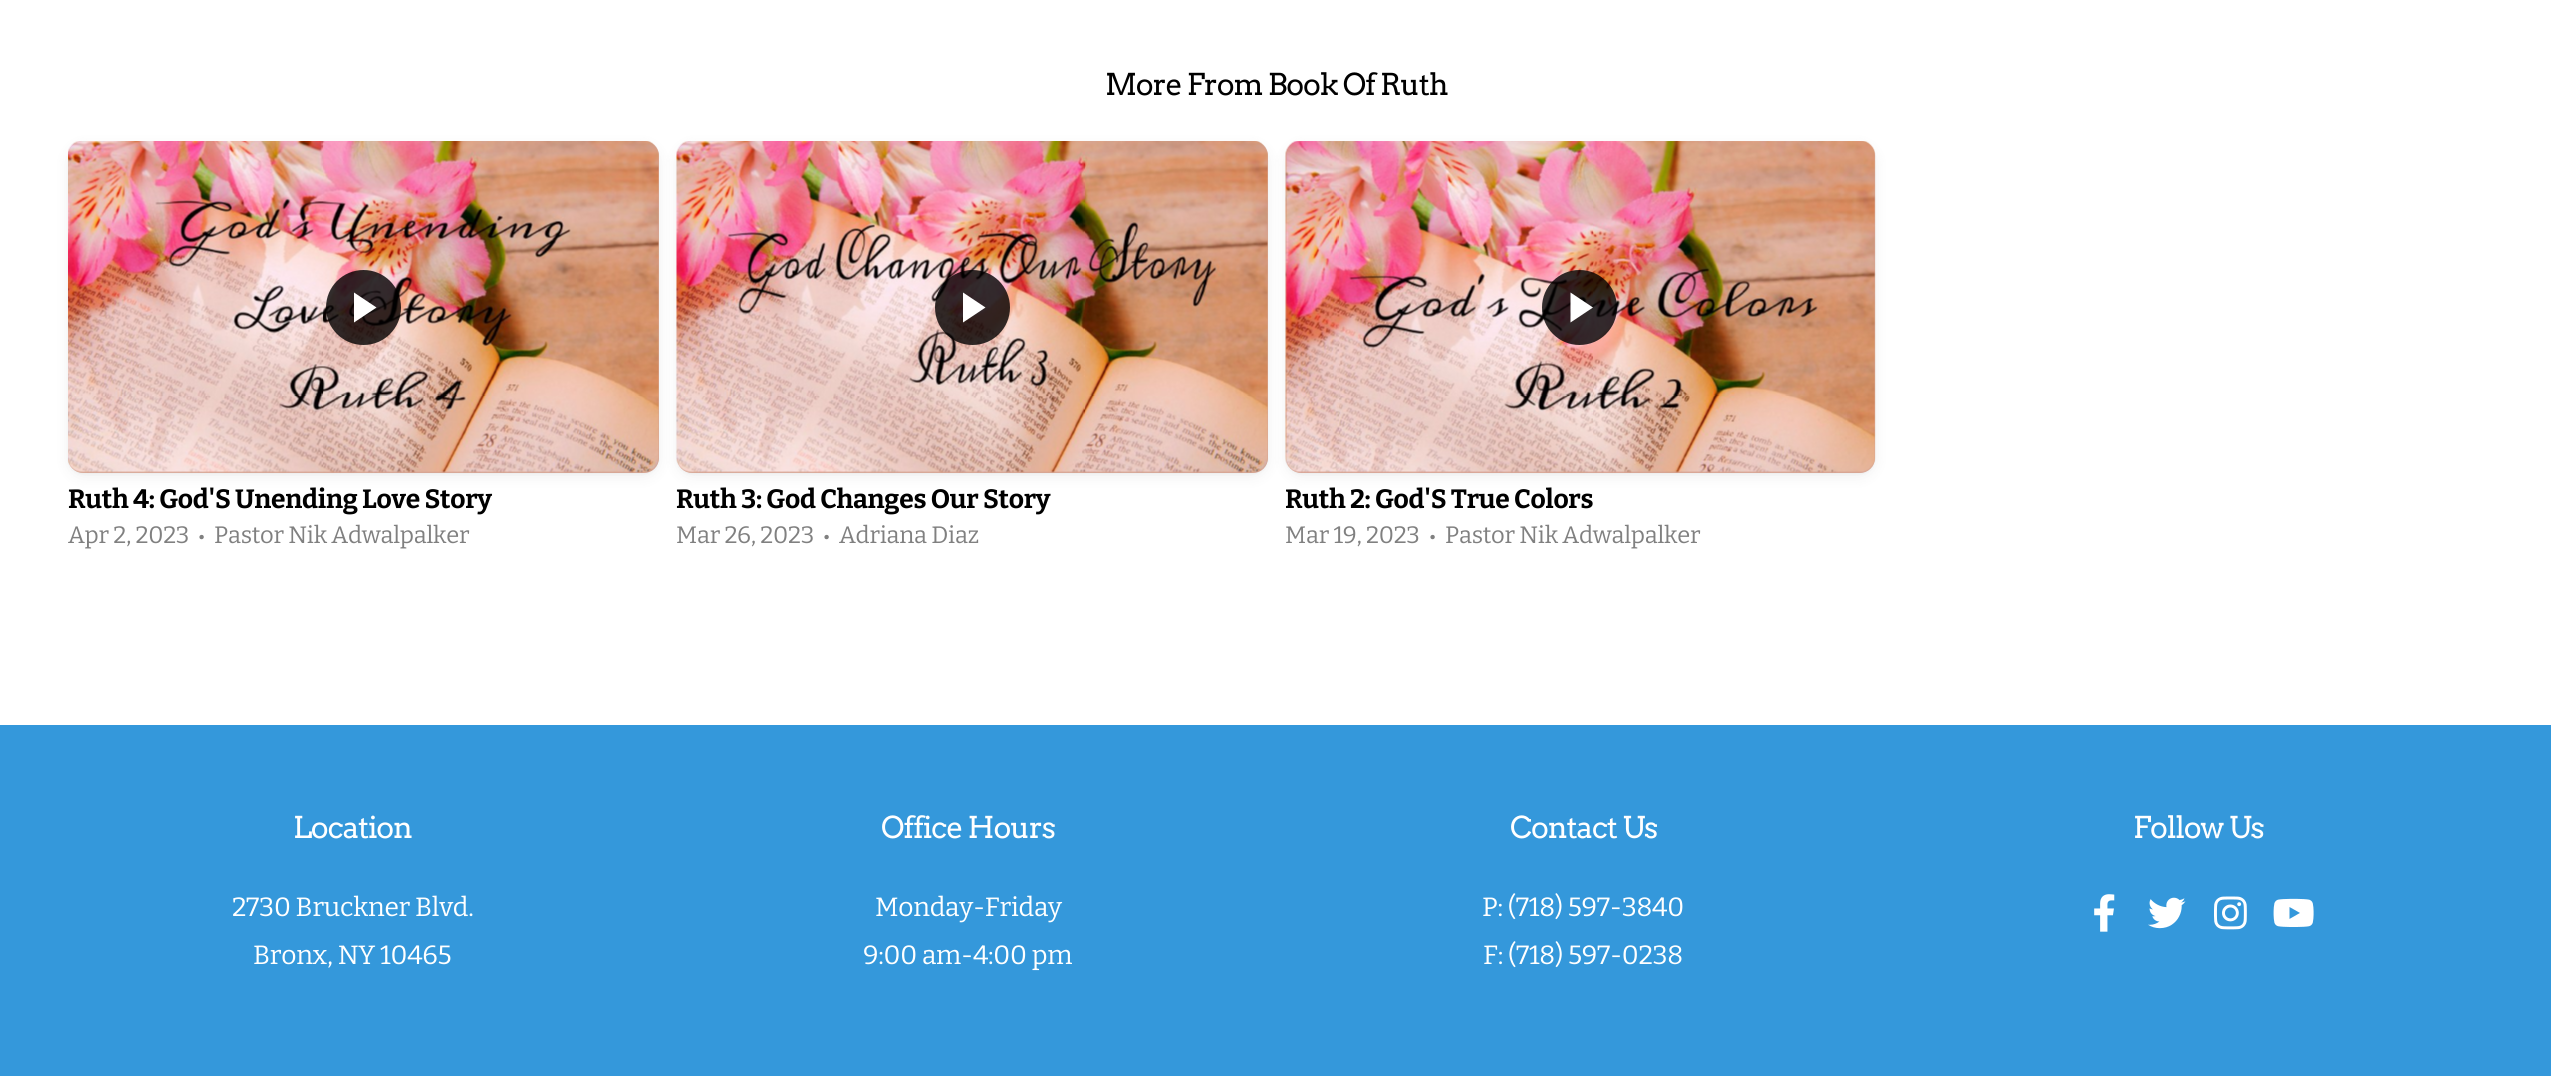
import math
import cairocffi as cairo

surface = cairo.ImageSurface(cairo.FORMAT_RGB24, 2551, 1076)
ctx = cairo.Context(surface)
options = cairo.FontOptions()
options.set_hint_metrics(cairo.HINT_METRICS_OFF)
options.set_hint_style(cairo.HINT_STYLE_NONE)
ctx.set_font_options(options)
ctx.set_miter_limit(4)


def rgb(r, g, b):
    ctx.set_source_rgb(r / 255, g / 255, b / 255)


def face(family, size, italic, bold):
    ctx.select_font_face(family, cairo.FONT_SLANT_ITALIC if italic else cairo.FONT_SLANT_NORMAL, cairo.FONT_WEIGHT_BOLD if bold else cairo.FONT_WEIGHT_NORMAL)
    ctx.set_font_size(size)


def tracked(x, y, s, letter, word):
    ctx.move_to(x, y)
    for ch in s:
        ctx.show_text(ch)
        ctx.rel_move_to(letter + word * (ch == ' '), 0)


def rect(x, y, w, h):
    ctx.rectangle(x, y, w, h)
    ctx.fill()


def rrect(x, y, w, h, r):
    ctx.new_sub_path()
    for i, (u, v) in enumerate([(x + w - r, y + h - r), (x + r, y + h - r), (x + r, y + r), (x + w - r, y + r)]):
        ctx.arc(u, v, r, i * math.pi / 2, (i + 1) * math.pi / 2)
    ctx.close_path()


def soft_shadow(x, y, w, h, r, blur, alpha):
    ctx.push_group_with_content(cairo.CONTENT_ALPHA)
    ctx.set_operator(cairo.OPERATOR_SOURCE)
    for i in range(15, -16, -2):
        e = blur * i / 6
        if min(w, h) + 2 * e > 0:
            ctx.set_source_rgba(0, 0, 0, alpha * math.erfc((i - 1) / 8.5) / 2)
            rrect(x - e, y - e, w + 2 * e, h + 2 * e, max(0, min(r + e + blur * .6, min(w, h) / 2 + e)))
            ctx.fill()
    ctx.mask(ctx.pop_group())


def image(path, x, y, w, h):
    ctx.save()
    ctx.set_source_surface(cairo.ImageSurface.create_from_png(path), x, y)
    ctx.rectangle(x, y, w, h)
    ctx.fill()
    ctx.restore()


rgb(255, 255, 255)
ctx.paint()
face('Arvo', 30, 0, 0)
rgb(0, 0, 0)
tracked(1105, 95, 'More From Book Of Ruth', -1.2, 0)
rgb(0, 0, 0)
soft_shadow(68, 143, 591, 331, 15, 1.5, 0.04)
soft_shadow(68, 146, 591, 331, 15, 7.5, 0.06)
rgb(214, 165, 147)
rrect(68, 141, 591, 332, 15)
ctx.fill()
image('image0.png', 68, 141, 591, 332)
ctx.set_source_rgba(0, 0, 0, 0.8)
ctx.arc(363.5, 307.5, 37.5, 0, 2 * math.pi)
ctx.fill()
rgb(255, 255, 255)
ctx.new_path()
ctx.move_to(354, 322.5)
ctx.line_to(354, 292.5)
ctx.line_to(376.5, 307.5)
ctx.close_path()
ctx.fill()
face('Bitter', 26.4, 0, 1)
rgb(0, 0, 0)
tracked(68, 508, 'Ruth 4: God\'S Unending Love Story', -0.25, 0)
face('Bitter', 23.75, 0, 0)
rgb(128, 128, 128)
tracked(68, 543, 'Apr 2, 2023', -0.25, 0)
face('Bitter', 19, 0, 0)
tracked(198, 543, '•', -0.25, 0)
face('Bitter', 23.75, 0, 0)
tracked(214, 543, 'Pastor Nik Adwalpalker', -0.25, 0)
rgb(0, 0, 0)
soft_shadow(677, 143, 591, 331, 15, 1.5, 0.04)
soft_shadow(677, 146, 591, 331, 15, 7.5, 0.06)
rgb(214, 165, 147)
rrect(677, 141, 591, 332, 15)
ctx.fill()
image('image1.png', 676, 141, 592, 332)
ctx.set_source_rgba(0, 0, 0, 0.8)
ctx.arc(972.5, 307.5, 37.5, 0, 2 * math.pi)
ctx.fill()
rgb(255, 255, 255)
ctx.new_path()
ctx.move_to(963, 322.5)
ctx.line_to(963, 292.5)
ctx.line_to(985.5, 307.5)
ctx.close_path()
ctx.fill()
face('Bitter', 26.4, 0, 1)
rgb(0, 0, 0)
tracked(676, 508, 'Ruth 3: God Changes Our Story', -0.25, 0)
face('Bitter', 23.75, 0, 0)
rgb(128, 128, 128)
tracked(676, 543, 'Mar 26, 2023', -0.25, 0)
face('Bitter', 19, 0, 0)
tracked(823, 543, '•', -0.25, 0)
face('Bitter', 23.75, 0, 0)
tracked(839, 543, 'Adriana Diaz', -0.25, 0)
rgb(0, 0, 0)
soft_shadow(1286, 143, 589, 331, 15, 1.5, 0.04)
soft_shadow(1286, 146, 589, 331, 15, 7.5, 0.06)
rgb(215, 165, 148)
rrect(1286, 141, 589, 332, 15)
ctx.fill()
image('image2.png', 1285, 141, 591, 332)
ctx.set_source_rgba(0, 0, 0, 0.8)
ctx.arc(1579.5, 307.5, 37.5, 0, 2 * math.pi)
ctx.fill()
rgb(255, 255, 255)
ctx.new_path()
ctx.move_to(1570.5, 322.5)
ctx.line_to(1570.5, 292.5)
ctx.line_to(1593, 307.5)
ctx.close_path()
ctx.fill()
ctx.save()
ctx.rectangle(1286, 480, 589, 41)
ctx.clip()
face('Bitter', 26.4, 0, 1)
rgb(0, 0, 0)
tracked(1285, 508, 'Ruth 2: God\'S True Colors', -0.25, 0)
ctx.restore()
rgb(128, 128, 128)
tracked(1285, 543, 'Mar 19, 2023', -0.25, 0)
face('Bitter', 19, 0, 0)
tracked(1429, 543, '•', -0.25, 0)
face('Bitter', 23.75, 0, 0)
tracked(1445, 543, 'Pastor Nik Adwalpalker', -0.25, 0)
rgb(52, 152, 219)
rect(0, 725, 2551, 351)
face('Arvo', 30, 0, 0)
rgb(255, 255, 255)
tracked(293, 838, 'Location', -1.2, 0)
face('Bitter', 26.4, 0, 0)
tracked(232, 916, '2730 Bruckner Blvd.', -0.25, 0)
tracked(253, 964, 'Bronx, NY 10465', -0.25, 0)
face('Arvo', 30, 0, 0)
tracked(881, 838, 'Office Hours', -1.2, 0)
face('Bitter', 26.4, 0, 0)
tracked(875, 916, 'Monday-Friday', -0.25, 0)
tracked(863, 964, '9:00 am-4:00 pm', -0.25, 0)
face('Arvo', 30, 0, 0)
tracked(1510, 838, 'Contact Us', -1.2, 0)
face('Bitter', 26.4, 0, 0)
tracked(1482, 916, 'P: (718) 597-3840', -0.25, 0)
tracked(1483, 964, 'F: (718) 597-0238', -0.25, 0)
face('Arvo', 30, 0, 0)
tracked(2133, 838, 'Follow Us', -1.2, 0)
image('image3.png', 2094, 894, 21, 38)
image('image4.png', 2148, 897, 38, 32)
image('image5.png', 2214, 896, 33, 34)
image('image6.png', 2273, 898, 41, 29)
surface.write_to_png('render.png')
